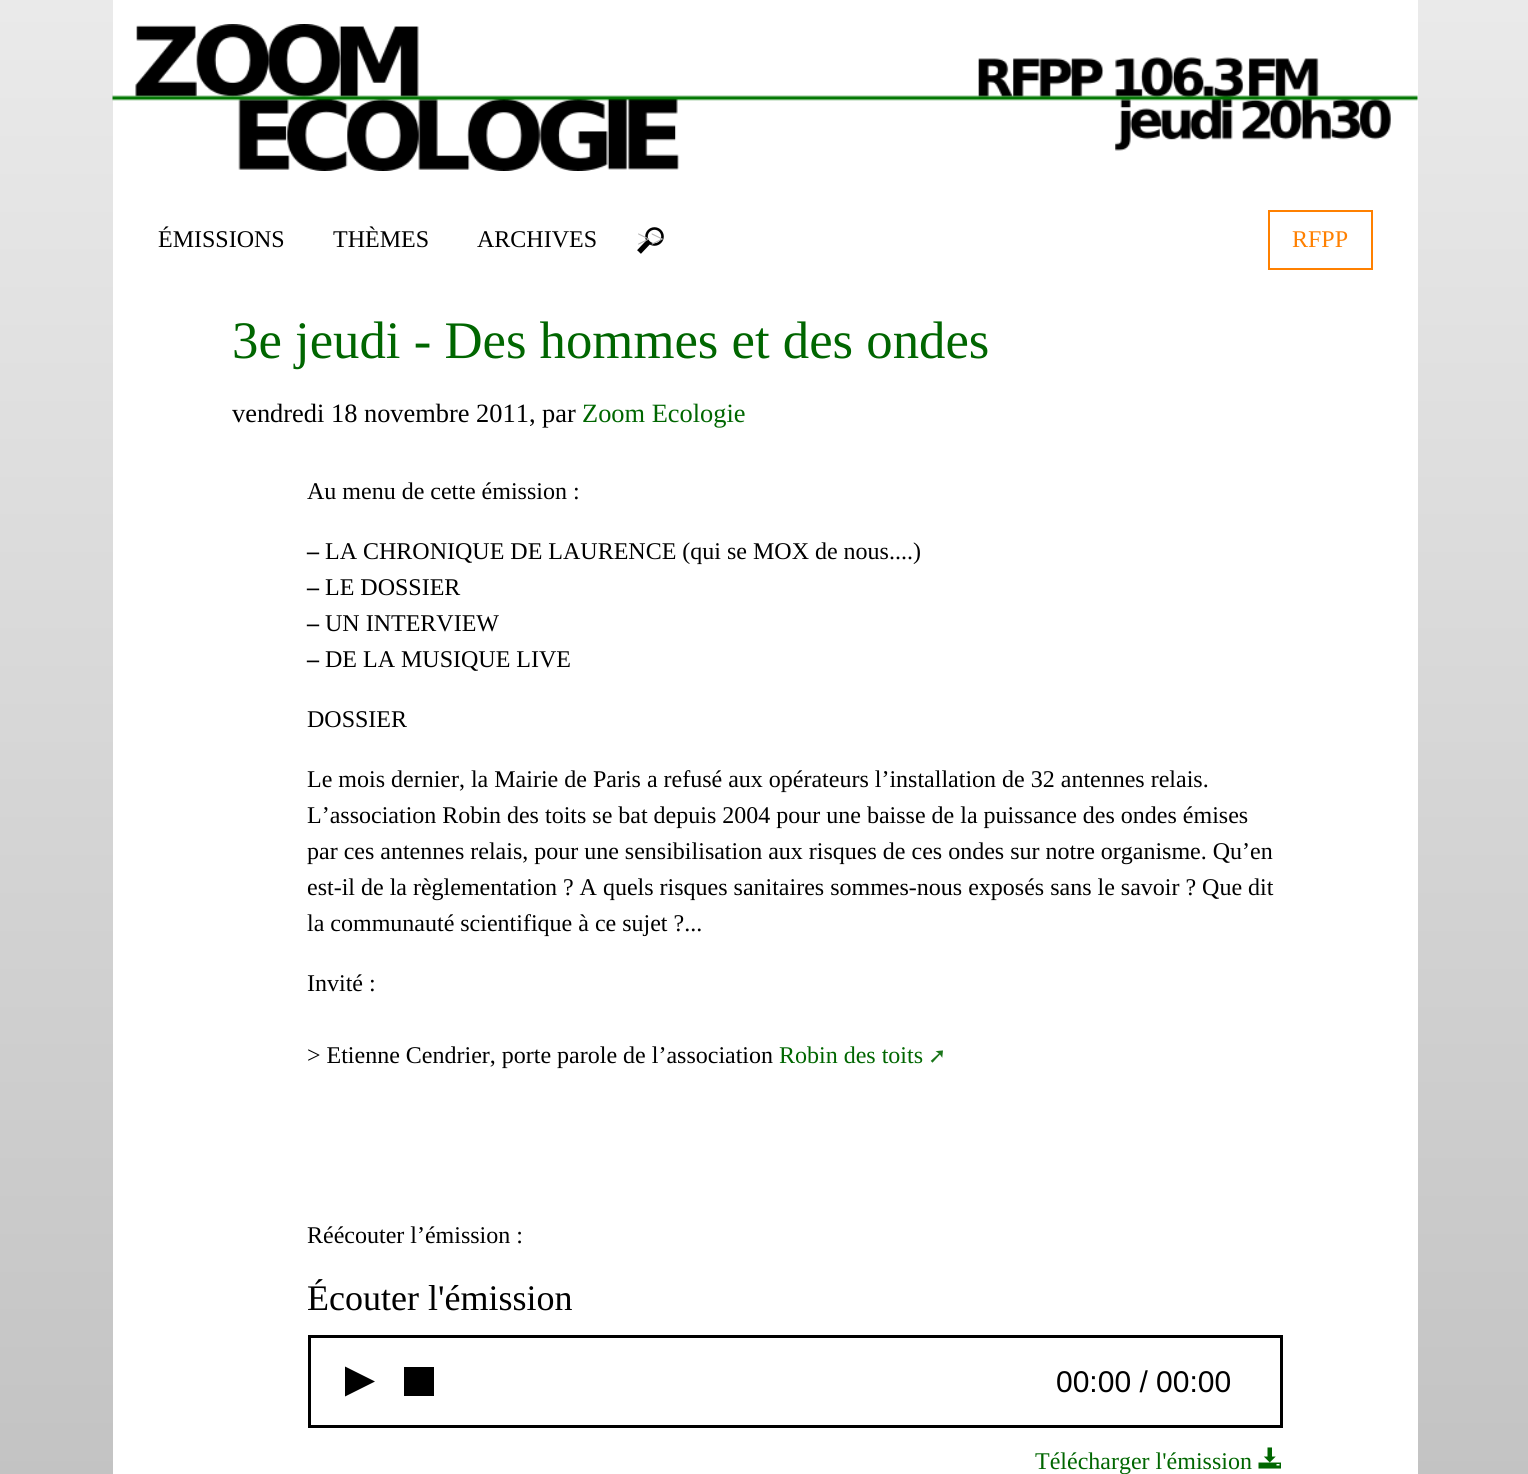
import math
import cairocffi as cairo

surface = cairo.ImageSurface(cairo.FORMAT_RGB24, 1528, 1474)
ctx = cairo.Context(surface)
options = cairo.FontOptions()
options.set_hint_metrics(cairo.HINT_METRICS_OFF)
options.set_hint_style(cairo.HINT_STYLE_NONE)
ctx.set_font_options(options)
ctx.set_miter_limit(4)


def rgb(r, g, b):
    ctx.set_source_rgb(r / 255, g / 255, b / 255)


def face(family, size, italic, bold):
    ctx.select_font_face(family, cairo.FONT_SLANT_ITALIC if italic else cairo.FONT_SLANT_NORMAL, cairo.FONT_WEIGHT_BOLD if bold else cairo.FONT_WEIGHT_NORMAL)
    ctx.set_font_size(size)


def label(x, y, s):
    ctx.move_to(x, y)
    ctx.show_text(s)


def rect(x, y, w, h):
    ctx.rectangle(x, y, w, h)
    ctx.fill()


def image(path, x, y, w, h):
    ctx.save()
    ctx.set_source_surface(cairo.ImageSurface.create_from_png(path), x, y)
    ctx.rectangle(x, y, w, h)
    ctx.fill()
    ctx.restore()


rgb(255, 255, 255)
ctx.paint()
gradient = cairo.LinearGradient(764, 0, 764, 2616)
gradient.add_color_stop_rgba(0, 0.918, 0.918, 0.918, 1)
gradient.add_color_stop_rgba(1, 0.647, 0.647, 0.647, 1)
ctx.set_source(gradient)
rect(0, 0, 1528, 1474)
rgb(255, 255, 255)
rect(113, 0, 1305, 1474)
image('image0.png', 112, 24, 1306, 147)
face('Liberation Serif', 24, 0, 0)
rgb(0, 0, 0)
label(158, 247, 'ÉMISSIONS')
label(333, 247, 'THÈMES')
label(477, 247, 'ARCHIVES')
ctx.new_path()
ctx.arc(654.5, 236.5, 8, 0, 2 * math.pi)
ctx.set_line_width(2.6)
ctx.stroke()
ctx.new_path()
ctx.move_to(648.5, 242)
ctx.line_to(639, 252)
ctx.set_line_width(5.3)
ctx.stroke()
rgb(180, 180, 180)
label(637, 247, '>>')
ctx.rectangle(1269, 211, 103, 58)
rgb(255, 128, 0)
ctx.set_line_width(2)
ctx.stroke()
label(1292, 247, 'RFPP')
face('Liberation Serif', 52.75, 0, 0)
rgb(0, 102, 0)
label(232, 358, '3e jeudi - Des hommes et des ondes')
face('Liberation Serif', 26.4, 0, 0)
rgb(0, 0, 0)
label(232, 422, 'vendredi 18 novembre 2011, par')
rgb(0, 102, 0)
label(582, 422, 'Zoom Ecologie')
face('Liberation Serif', 24, 0, 0)
rgb(0, 0, 0)
label(307, 499, 'Au menu de cette émission :')
face('Liberation Serif', 24, 0, 1)
label(307, 559, '–')
face('Liberation Serif', 24, 0, 0)
label(325, 559, 'LA CHRONIQUE DE LAURENCE (qui se MOX de nous....)')
face('Liberation Serif', 24, 0, 1)
label(307, 595, '–')
face('Liberation Serif', 24, 0, 0)
label(325, 595, 'LE DOSSIER')
face('Liberation Serif', 24, 0, 1)
label(307, 631, '–')
face('Liberation Serif', 24, 0, 0)
label(325, 631, 'UN INTERVIEW')
face('Liberation Serif', 24, 0, 1)
label(307, 667, '–')
face('Liberation Serif', 24, 0, 0)
label(325, 667, 'DE LA MUSIQUE LIVE')
label(307, 727, 'DOSSIER')
label(307, 787, 'Le mois dernier, la Mairie de Paris a refusé aux opérateurs l’installation de 32 antennes relais.')
label(307, 823, 'L’association Robin des toits se bat depuis 2004 pour une baisse de la puissance des ondes émises')
label(307, 859, 'par ces antennes relais, pour une sensibilisation aux risques de ces ondes sur notre organisme. Qu’en')
label(307, 895, 'est-il de la règlementation ? A quels risques sanitaires sommes-nous exposés sans le savoir ? Que dit')
label(307, 931, 'la communauté scientifique à ce sujet ?...')
label(307, 991, 'Invité :')
label(307, 1063, '> Etienne Cendrier, porte parole de l’association')
rgb(0, 102, 0)
label(779, 1063, 'Robin des toits')
face('DejaVu Sans', 22, 0, 0)
rgb(26, 117, 26)
label(928, 1063, '➚')
face('Liberation Serif', 24, 0, 0)
rgb(0, 0, 0)
label(307, 1243, 'Réécouter l’émission :')
face('Liberation Serif', 36, 0, 0)
label(307, 1310, 'Écouter l\'émission')
ctx.rectangle(309.5, 1336.5, 972, 90)
ctx.set_line_width(3)
ctx.stroke()
ctx.new_path()
ctx.move_to(345, 1396.5)
ctx.line_to(345, 1366.5)
ctx.line_to(375, 1381.5)
ctx.close_path()
ctx.fill()
rect(404, 1367, 30, 29)
face('Liberation Sans', 30, 0, 0)
label(1056, 1392, '00:00 / 00:00')
face('Liberation Serif', 24, 0, 0)
rgb(0, 102, 0)
label(1035, 1469, 'Télécharger l\'émission')
image('image1.png', 1258, 1447, 23, 22)
surface.write_to_png('render.png')
